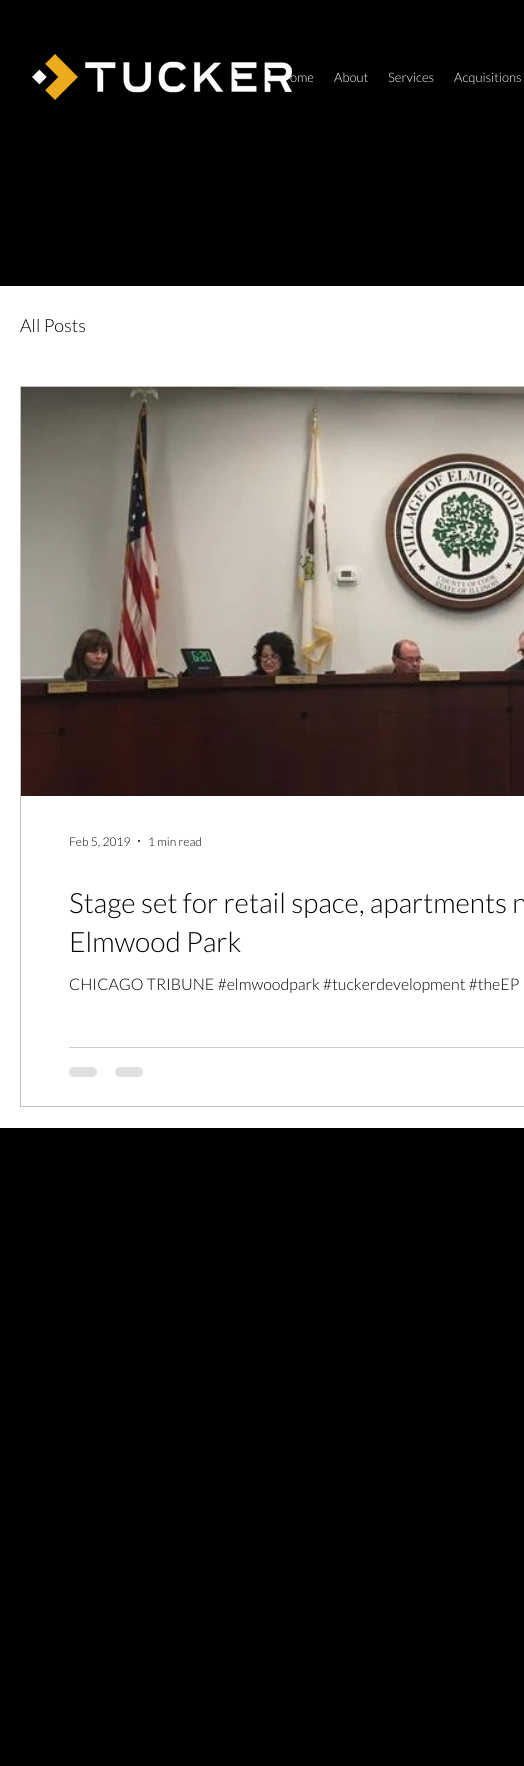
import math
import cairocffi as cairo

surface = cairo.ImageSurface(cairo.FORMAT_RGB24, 524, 1766)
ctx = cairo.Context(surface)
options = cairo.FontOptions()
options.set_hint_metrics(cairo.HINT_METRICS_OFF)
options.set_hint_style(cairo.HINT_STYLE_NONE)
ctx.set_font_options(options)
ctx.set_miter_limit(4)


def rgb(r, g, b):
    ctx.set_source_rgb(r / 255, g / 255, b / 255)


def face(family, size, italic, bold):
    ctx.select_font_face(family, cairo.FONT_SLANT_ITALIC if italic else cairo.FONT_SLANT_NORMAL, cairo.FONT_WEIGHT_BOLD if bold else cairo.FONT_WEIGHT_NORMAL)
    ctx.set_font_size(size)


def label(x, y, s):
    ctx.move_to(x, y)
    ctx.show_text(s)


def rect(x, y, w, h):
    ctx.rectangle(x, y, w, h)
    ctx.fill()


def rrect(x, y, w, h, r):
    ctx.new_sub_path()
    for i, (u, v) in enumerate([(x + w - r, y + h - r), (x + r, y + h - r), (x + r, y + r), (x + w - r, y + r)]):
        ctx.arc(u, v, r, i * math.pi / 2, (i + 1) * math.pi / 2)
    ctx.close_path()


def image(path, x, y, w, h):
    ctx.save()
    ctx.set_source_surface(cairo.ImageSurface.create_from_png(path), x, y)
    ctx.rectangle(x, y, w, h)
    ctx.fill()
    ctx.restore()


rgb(0, 0, 0)
ctx.paint()
image('image0.png', 32, 54, 260, 46)
face('Lato Light', 13, 0, 0)
rgb(255, 255, 255)
label(290, 82, 'ome')
label(334, 82, 'About')
label(388, 82, 'Services')
label(454, 82, 'Acquisitions')
rect(0, 286, 524, 842)
face('Lato Light', 18, 0, 0)
rgb(0, 0, 0)
label(20, 332, 'All Posts')
ctx.rectangle(20.5, 386.5, 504, 720)
rgb(191, 191, 191)
ctx.set_line_width(1)
ctx.stroke()
image('image1.png', 21, 387, 503, 409)
face('Lato Light', 12, 0, 0)
rgb(0, 0, 0)
label(69, 846, 'Feb 5, 2019')
ctx.new_path()
ctx.arc(139, 841, 1, 0, 2 * math.pi)
ctx.fill()
label(148, 846, '1 min read')
face('Lato Light', 28, 0, 0)
label(69, 913, 'Stage set for retail space, apartments n')
label(69, 952, 'Elmwood Park')
face('Lato Light', 16, 0, 0)
label(69, 990, 'CHICAGO TRIBUNE #elmwoodpark #tuckerdevelopment #theEP')
rgb(204, 204, 204)
rect(69, 1047, 455, 1)
rgb(224, 224, 224)
rrect(69, 1067, 28, 10, 5)
ctx.fill()
rrect(115, 1067, 28, 10, 5)
ctx.fill()
surface.write_to_png('render.png')
